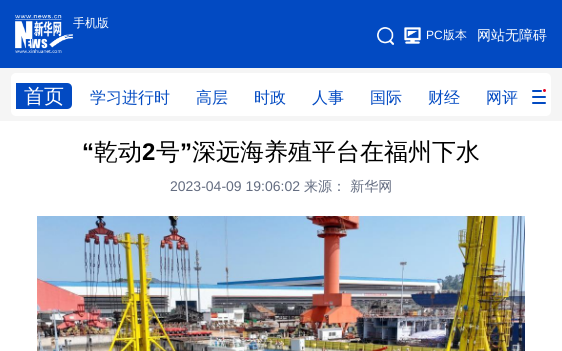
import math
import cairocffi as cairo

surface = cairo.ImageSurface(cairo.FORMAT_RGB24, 562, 351)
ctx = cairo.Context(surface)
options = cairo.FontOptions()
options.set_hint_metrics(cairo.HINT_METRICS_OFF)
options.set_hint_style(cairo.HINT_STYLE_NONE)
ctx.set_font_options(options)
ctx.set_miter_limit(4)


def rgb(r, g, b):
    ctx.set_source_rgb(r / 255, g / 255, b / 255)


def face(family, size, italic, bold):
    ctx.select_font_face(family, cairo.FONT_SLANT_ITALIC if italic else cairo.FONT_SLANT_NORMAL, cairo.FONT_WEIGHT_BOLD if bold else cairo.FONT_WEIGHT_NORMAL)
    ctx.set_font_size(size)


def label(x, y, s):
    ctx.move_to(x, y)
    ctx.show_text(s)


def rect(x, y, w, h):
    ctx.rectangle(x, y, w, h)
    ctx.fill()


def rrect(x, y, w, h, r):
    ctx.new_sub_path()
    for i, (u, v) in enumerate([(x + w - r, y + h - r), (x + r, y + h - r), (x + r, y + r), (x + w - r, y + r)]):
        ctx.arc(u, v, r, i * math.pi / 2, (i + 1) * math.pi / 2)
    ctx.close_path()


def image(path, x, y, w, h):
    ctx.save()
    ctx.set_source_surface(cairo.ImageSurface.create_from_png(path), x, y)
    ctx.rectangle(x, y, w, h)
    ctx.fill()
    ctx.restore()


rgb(255, 255, 255)
ctx.paint()
rgb(2, 74, 194)
rect(0, 0, 562, 68)
image('image0.png', 15, 15, 58, 38)
face('WenQuanYi Zen Hei Medium', 12, 0, 0)
rgb(255, 255, 255)
label(73, 27, '手机版')
image('image1.png', 377, 27, 17, 18)
image('image2.png', 404, 27, 17, 17)
face('Liberation Sans', 12, 0, 0)
label(426, 39, 'PC')
face('WenQuanYi Zen Hei Medium', 12, 0, 0)
label(443, 39, '版本')
face('WenQuanYi Zen Hei Medium', 14, 0, 0)
label(477, 40, '网站无障碍')
rgb(245, 245, 245)
rect(0, 68, 562, 53)
rgb(255, 255, 255)
rrect(11, 73, 540, 43, 5)
ctx.fill()
rgb(2, 74, 194)
ctx.new_path()
ctx.move_to(16, 83)
ctx.line_to(67, 83)
ctx.curve_to(70, 83, 72, 85, 72, 88)
ctx.line_to(72, 104)
ctx.curve_to(72, 107, 70, 109, 67, 109)
ctx.line_to(16, 109)
ctx.close_path()
ctx.fill()
face('WenQuanYi Zen Hei Medium', 20, 0, 0)
rgb(255, 255, 255)
label(24, 103, '首页')
face('WenQuanYi Zen Hei Medium', 16, 0, 0)
rgb(2, 74, 194)
label(90, 103, '学习进行时')
label(196, 103, '高层')
label(254, 103, '时政')
label(312, 103, '人事')
label(370, 103, '国际')
label(428, 103, '财经')
label(486, 103, '网评')
gradient = cairo.LinearGradient(514, 97, 524, 97)
gradient.add_color_stop_rgba(0, 1, 1, 1, 0)
gradient.add_color_stop_rgba(1, 1, 1, 1, 1)
ctx.set_source(gradient)
rect(514, 91, 4, 8)
rgb(2, 74, 194)
rrect(532, 90, 10, 2, 1)
ctx.fill()
rgb(229, 0, 32)
ctx.arc(544.5, 90.5, 1.5, 0, 2 * math.pi)
ctx.fill()
rgb(2, 74, 194)
rrect(532, 96, 14, 2, 1)
ctx.fill()
rrect(532, 102, 14, 2, 1)
ctx.fill()
face('Liberation Sans', 24, 0, 1)
rgb(0, 0, 0)
label(82, 160, '“')
face('WenQuanYi Zen Hei Medium', 24, 0, 0)
label(94, 160, '乾动')
face('Liberation Sans', 24, 0, 1)
label(142, 160, '2')
face('WenQuanYi Zen Hei Medium', 24, 0, 0)
label(156, 160, '号')
face('Liberation Sans', 24, 0, 1)
label(180, 160, '”')
face('WenQuanYi Zen Hei Medium', 24, 0, 0)
label(192, 160, '深远海养殖平台在福州下水')
face('Liberation Sans', 14, 0, 0)
rgb(100, 109, 129)
label(170, 191, '2023-04-09 19:06:02')
face('WenQuanYi Zen Hei Medium', 14, 0, 0)
label(304, 191, '来源： 新华网')
image('image3.png', 37, 216, 488, 135)
surface.write_to_png('render.png')
